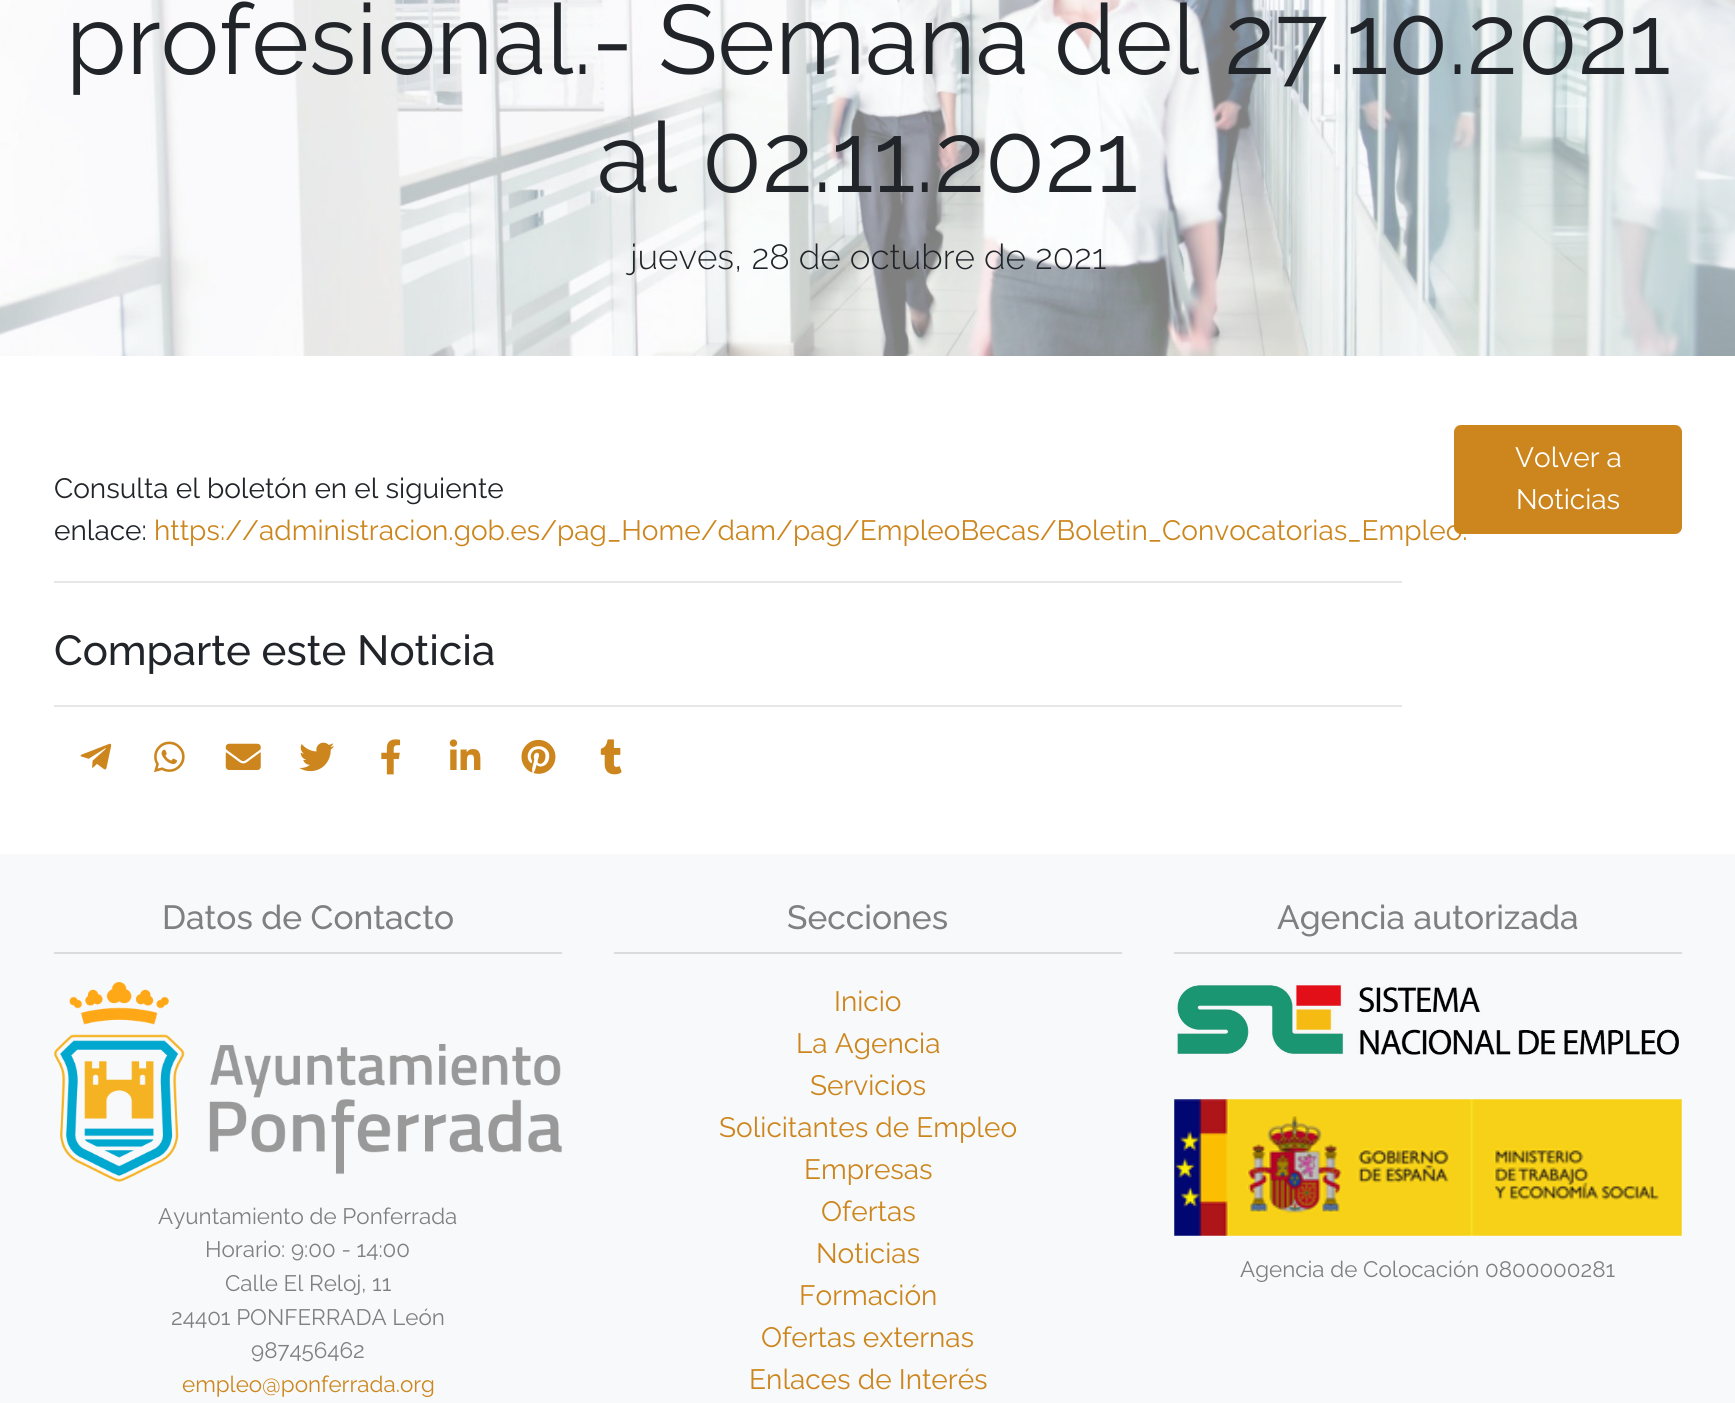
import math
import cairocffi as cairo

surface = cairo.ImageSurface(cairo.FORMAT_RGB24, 1735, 1403)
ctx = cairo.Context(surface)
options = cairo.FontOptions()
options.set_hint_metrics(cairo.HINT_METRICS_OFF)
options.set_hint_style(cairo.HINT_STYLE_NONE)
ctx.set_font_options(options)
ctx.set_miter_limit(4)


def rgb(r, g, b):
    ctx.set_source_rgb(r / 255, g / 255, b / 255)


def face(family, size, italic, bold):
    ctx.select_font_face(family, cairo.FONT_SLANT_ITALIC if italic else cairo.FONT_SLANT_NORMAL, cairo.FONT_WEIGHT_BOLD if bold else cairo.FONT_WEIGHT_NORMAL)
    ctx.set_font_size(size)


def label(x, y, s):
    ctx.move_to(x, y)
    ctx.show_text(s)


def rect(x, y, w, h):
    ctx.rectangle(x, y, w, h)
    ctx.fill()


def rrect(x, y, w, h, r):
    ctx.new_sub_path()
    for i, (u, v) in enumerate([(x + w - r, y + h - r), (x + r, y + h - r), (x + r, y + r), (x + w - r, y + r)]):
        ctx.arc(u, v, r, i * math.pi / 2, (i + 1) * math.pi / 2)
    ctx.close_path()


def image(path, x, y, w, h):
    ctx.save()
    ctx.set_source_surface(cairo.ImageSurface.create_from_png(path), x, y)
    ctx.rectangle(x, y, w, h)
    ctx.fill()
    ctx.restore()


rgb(255, 255, 255)
ctx.paint()
image('image0.png', 0, 0, 1735, 356)
face('Raleway', 98, 0, 0)
rgb(33, 37, 41)
label(66, 74, 'profesional.- Semana del 27.10.2021')
label(597, 192, 'al 02.11.2021')
face('Raleway Light', 35, 0, 0)
label(630, 269, 'jueves, 28 de octubre de 2021')
face('Raleway', 28, 0, 0)
label(54, 498, 'Consulta el boletón en el siguiente')
label(54, 540, 'enlace:')
rgb(204, 134, 29)
label(154, 540, 'https://administracion.gob.es/pag_Home/dam/pag/EmpleoBecas/Boletin_Convocatorias_Empleo.')
rgb(230, 230, 230)
rect(54, 581, 1348, 2)
face('Raleway Medium', 42, 0, 0)
rgb(33, 37, 41)
label(54, 665, 'Comparte este Noticia')
rgb(230, 230, 230)
rect(54, 705, 1348, 2)
image('image1.png', 80, 743, 32, 27)
image('image2.png', 154, 741, 31, 32)
image('image3.png', 225, 743, 36, 27)
image('image4.png', 299, 742, 36, 30)
image('image5.png', 381, 739, 20, 36)
image('image6.png', 449, 739, 32, 31)
image('image7.png', 521, 739, 35, 35)
image('image8.png', 600, 739, 22, 36)
rgb(204, 134, 29)
rrect(1455, 426, 226, 107, 6)
ctx.fill_preserve()
ctx.stroke()
face('Raleway', 28, 0, 0)
rgb(255, 255, 255)
label(1515, 467, 'Volver a')
label(1516, 509, 'Noticias')
rgb(248, 249, 250)
rect(0, 854, 1735, 549)
face('Raleway Medium', 33.5, 0, 0)
rgb(128, 128, 128)
label(162, 929, 'Datos de Contacto')
rgb(220, 220, 220)
rect(54, 952, 508, 2)
image('image9.png', 54, 982, 508, 200)
face('Raleway', 22.4, 0, 0)
rgb(128, 128, 128)
label(158, 1224, 'Ayuntamiento de Ponferrada')
label(205, 1257, 'Horario: 9:00 - 14:00')
label(225, 1291, 'Calle El Reloj, 11')
label(171, 1325, '24401 PONFERRADA León')
label(251, 1358, '987456462')
rgb(204, 134, 29)
label(182, 1392, 'empleo@ponferrada.org')
face('Raleway Medium', 33.5, 0, 0)
rgb(128, 128, 128)
label(787, 929, 'Secciones')
rgb(220, 220, 220)
rect(614, 952, 508, 2)
face('Raleway', 28, 0, 0)
rgb(204, 134, 29)
label(834, 1011, 'Inicio')
label(796, 1053, 'La Agencia')
label(810, 1095, 'Servicios')
label(719, 1137, 'Solicitantes de Empleo')
label(804, 1179, 'Empresas')
label(821, 1221, 'Ofertas')
label(816, 1263, 'Noticias')
label(799, 1305, 'Formación')
label(761, 1347, 'Ofertas externas')
label(749, 1389, 'Enlaces de Interés')
face('Raleway Medium', 33.5, 0, 0)
rgb(128, 128, 128)
label(1277, 929, 'Agencia autorizada')
rgb(220, 220, 220)
rect(1174, 952, 508, 2)
image('image10.png', 1175, 982, 504, 73)
image('image11.png', 1174, 1099, 508, 137)
face('Raleway', 22.4, 0, 0)
rgb(128, 128, 128)
label(1240, 1277, 'Agencia de Colocación 0800000281')
surface.write_to_png('render.png')
